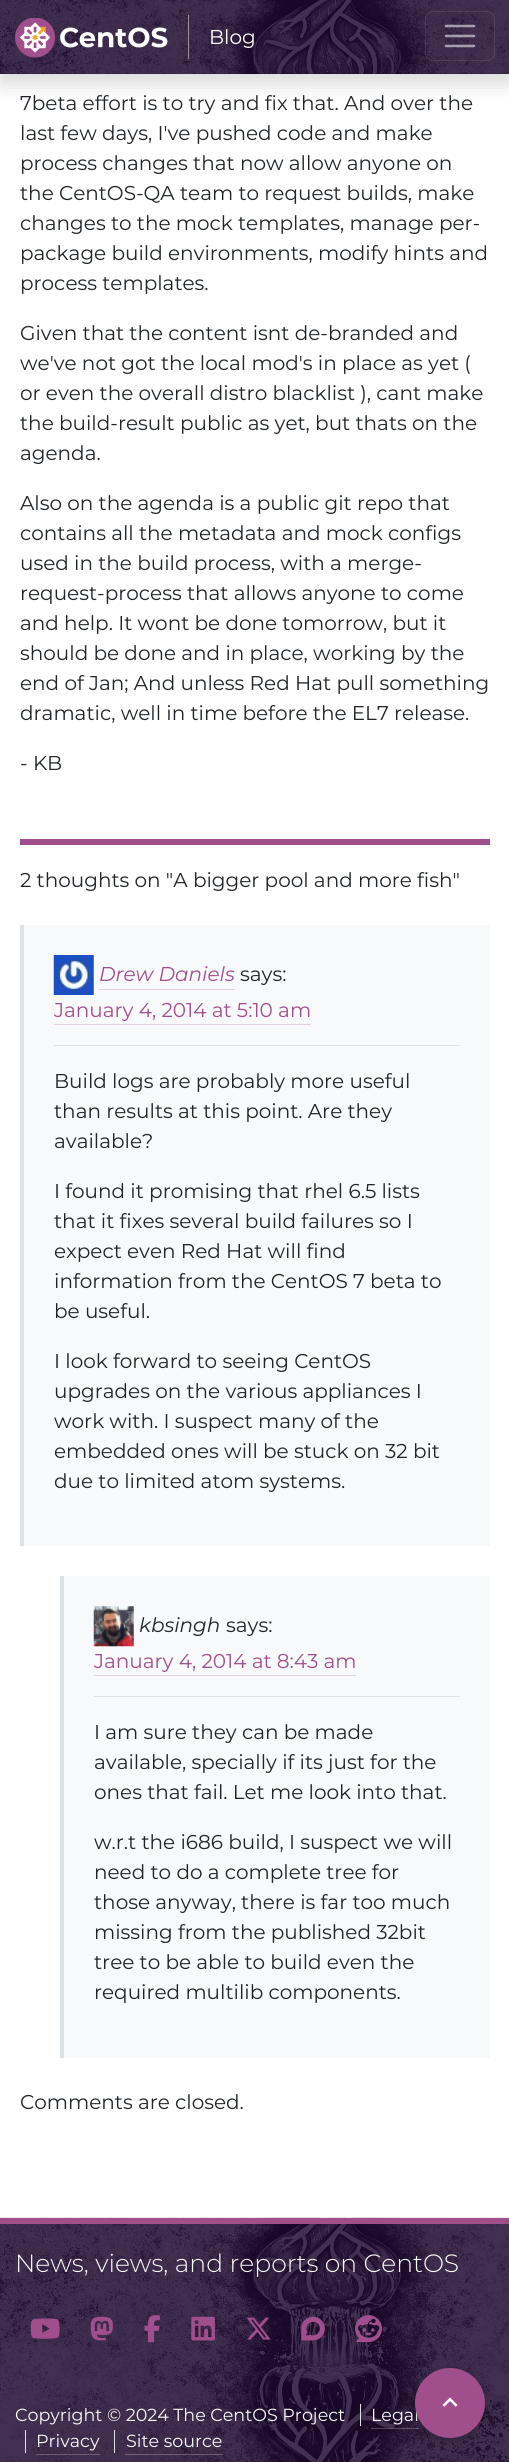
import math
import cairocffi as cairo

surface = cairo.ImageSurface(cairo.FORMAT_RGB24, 509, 2462)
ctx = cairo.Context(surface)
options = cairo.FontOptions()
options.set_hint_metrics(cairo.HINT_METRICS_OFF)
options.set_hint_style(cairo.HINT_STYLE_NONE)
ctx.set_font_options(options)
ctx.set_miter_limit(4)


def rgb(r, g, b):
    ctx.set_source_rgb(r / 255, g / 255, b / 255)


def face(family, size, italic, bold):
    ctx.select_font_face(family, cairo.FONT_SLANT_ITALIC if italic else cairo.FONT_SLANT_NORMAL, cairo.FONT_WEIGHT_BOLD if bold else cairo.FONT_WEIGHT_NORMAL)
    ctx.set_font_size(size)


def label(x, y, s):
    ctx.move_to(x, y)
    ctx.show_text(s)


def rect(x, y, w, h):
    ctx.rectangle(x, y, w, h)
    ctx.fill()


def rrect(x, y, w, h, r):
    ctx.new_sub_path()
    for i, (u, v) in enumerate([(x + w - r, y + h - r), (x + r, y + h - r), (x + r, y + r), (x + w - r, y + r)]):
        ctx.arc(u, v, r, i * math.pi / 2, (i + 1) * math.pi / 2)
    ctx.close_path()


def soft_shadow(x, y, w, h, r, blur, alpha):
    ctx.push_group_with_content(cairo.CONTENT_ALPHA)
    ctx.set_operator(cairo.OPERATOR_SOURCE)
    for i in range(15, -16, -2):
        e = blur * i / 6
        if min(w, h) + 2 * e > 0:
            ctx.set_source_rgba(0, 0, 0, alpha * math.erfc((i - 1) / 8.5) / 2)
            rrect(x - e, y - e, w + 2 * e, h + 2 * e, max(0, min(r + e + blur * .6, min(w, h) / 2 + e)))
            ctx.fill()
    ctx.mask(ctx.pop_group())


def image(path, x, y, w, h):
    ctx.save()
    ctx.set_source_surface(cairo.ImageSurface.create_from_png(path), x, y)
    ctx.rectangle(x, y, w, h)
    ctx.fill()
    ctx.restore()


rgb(255, 255, 255)
ctx.paint()
rgb(0, 0, 0)
soft_shadow(0, 10, 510, 74, 0, 10, 0.15)
rgb(32, 7, 53)
rect(0, 0, 509, 74)
image('image0.png', 0, 0, 509, 74)
image('image1.png', 15, 18, 153, 40)
face('Montserrat', 20, 0, 0)
rgb(255, 255, 255)
label(209, 44, 'Blog')
ctx.set_source_rgba(0.973, 0.976, 0.98, 0.5)
rect(188, 15, 1, 44)
rrect(425.5, 11.5, 69, 49, 7.5)
ctx.set_source_rgba(1, 1, 1, 0.1)
ctx.set_line_width(1)
ctx.stroke()
ctx.new_path()
ctx.move_to(446, 26)
ctx.line_to(474, 26)
ctx.move_to(446, 36)
ctx.line_to(474, 36)
ctx.move_to(446, 46)
ctx.line_to(474, 46)
ctx.set_source_rgba(1, 1, 1, 0.55)
ctx.set_line_width(2.5)
ctx.set_line_cap(cairo.LINE_CAP_ROUND)
ctx.stroke()
rgb(33, 37, 41)
label(20, 110, '7beta effort is to try and fix that. And over the')
label(20, 140, 'last few days, I\'ve pushed code and make')
label(20, 170, 'process changes that now allow anyone on')
label(20, 200, 'the CentOS-QA team to request builds, make')
label(20, 230, 'changes to the mock templates, manage per-')
label(20, 260, 'package build environments, modify hints and')
label(20, 290, 'process templates.')
label(20, 340, 'Given that the content isnt de-branded and')
label(20, 370, 'we\'ve not got the local mod\'s in place as yet (')
label(20, 400, 'or even the overall distro blacklist ), cant make')
label(20, 430, 'the build-result public as yet, but thats on the')
label(20, 460, 'agenda.')
label(20, 510, 'Also on the agenda is a public git repo that')
label(20, 540, 'contains all the metadata and mock configs')
label(20, 570, 'used in the build process, with a merge-')
label(20, 600, 'request-process that allows anyone to come')
label(20, 630, 'and help. It wont be done tomorrow, but it')
label(20, 660, 'should be done and in place, working by the')
label(20, 690, 'end of Jan; And unless Red Hat pull something')
label(20, 720, 'dramatic, well in time before the EL7 release.')
label(20, 770, '- KB')
rgb(161, 79, 140)
rect(20, 839, 470, 6)
rgb(33, 37, 41)
label(20, 887, '2 thoughts on "A bigger pool and more fish"')
rgb(248, 249, 250)
rect(24, 925, 466, 621)
rgb(222, 226, 230)
rect(20, 925, 4, 621)
image('image2.png', 53, 955, 41, 40)
face('Montserrat', 20, 1, 0)
rgb(161, 79, 140)
label(99, 981, 'Drew Daniels')
rgb(226, 207, 223)
rect(99, 989, 136, 1)
face('Montserrat', 20, 0, 0)
rgb(33, 37, 41)
label(240, 981, 'says:')
rgb(222, 226, 230)
rect(54, 1045, 406, 1)
rgb(161, 79, 140)
label(54, 1017, 'January 4, 2014 at 5:10 am')
rgb(226, 207, 223)
rect(54, 1024, 257, 1)
rgb(33, 37, 41)
label(54, 1088, 'Build logs are probably more useful')
label(54, 1118, 'than results at this point. Are they')
label(54, 1148, 'available?')
label(54, 1198, 'I found it promising that rhel 6.5 lists')
label(54, 1228, 'that it fixes several build failures so I')
label(54, 1258, 'expect even Red Hat will find')
label(54, 1288, 'information from the CentOS 7 beta to')
label(54, 1318, 'be useful.')
label(54, 1368, 'I look forward to seeing CentOS')
label(54, 1398, 'upgrades on the various appliances I')
label(54, 1428, 'work with. I suspect many of the')
label(54, 1458, 'embedded ones will be stuck on 32 bit')
label(54, 1488, 'due to limited atom systems.')
rgb(248, 249, 250)
rect(64, 1576, 426, 482)
rgb(222, 226, 230)
rect(60, 1576, 4, 482)
image('image3.png', 93, 1606, 41, 41)
face('Montserrat', 20, 1, 0)
rgb(33, 37, 41)
label(139, 1632, 'kbsingh')
face('Montserrat', 20, 0, 0)
label(226, 1632, 'says:')
rgb(222, 226, 230)
rect(94, 1696, 366, 1)
rgb(161, 79, 140)
label(94, 1668, 'January 4, 2014 at 8:43 am')
rgb(226, 207, 223)
rect(94, 1675, 262, 1)
rgb(33, 37, 41)
label(94, 1739, 'I am sure they can be made')
label(94, 1769, 'available, specially if its just for the')
label(94, 1799, 'ones that fail. Let me look into that.')
label(94, 1849, 'w.r.t the i686 build, I suspect we will')
label(94, 1879, 'need to do a complete tree for')
label(94, 1909, 'those anyway, there is far too much')
label(94, 1939, 'missing from the published 32bit')
label(94, 1969, 'tree to be able to build even the')
label(94, 1999, 'required multilib components.')
label(20, 2109, 'Comments are closed.')
rgb(32, 7, 53)
rect(0, 2224, 509, 238)
image('image4.png', 0, 2217, 509, 245)
rgb(161, 79, 140)
rect(0, 2218, 509, 6)
face('Montserrat Light', 25, 0, 0)
rgb(248, 249, 250)
label(15, 2272, 'News, views, and reports on CentOS')
image('image5.png', 30, 2318, 30, 21)
image('image6.png', 90, 2316, 23, 25)
image('image7.png', 144, 2315, 16, 28)
image('image8.png', 191, 2316, 24, 25)
image('image9.png', 246, 2317, 25, 23)
image('image10.png', 301, 2316, 24, 25)
image('image11.png', 355, 2315, 27, 28)
face('Montserrat', 17.5, 0, 0)
label(15, 2421, 'Copyright © 2024 The CentOS Project')
label(371, 2421, 'Legal')
rgb(222, 226, 230)
rect(360, 2404, 1, 22)
ctx.set_source_rgba(0.973, 0.976, 0.98, 0.25)
rect(371, 2428, 48, 1)
rgb(248, 249, 250)
label(36, 2447, 'Privacy')
rgb(222, 226, 230)
rect(25, 2430, 1, 23)
ctx.set_source_rgba(0.973, 0.976, 0.98, 0.25)
rect(36, 2454, 64, 1)
rgb(248, 249, 250)
label(126, 2447, 'Site source')
rgb(222, 226, 230)
rect(114, 2430, 1, 23)
ctx.set_source_rgba(0.973, 0.976, 0.98, 0.25)
rect(125, 2454, 98, 1)
rgb(0, 0, 0)
soft_shadow(415, 2370, 70, 70, 35, 3, 0.26)
rgb(161, 79, 140)
ctx.arc(450, 2403, 35, 0, 2 * math.pi)
ctx.fill()
image('image12.png', 442, 2397, 16, 10)
surface.write_to_png('render.png')
